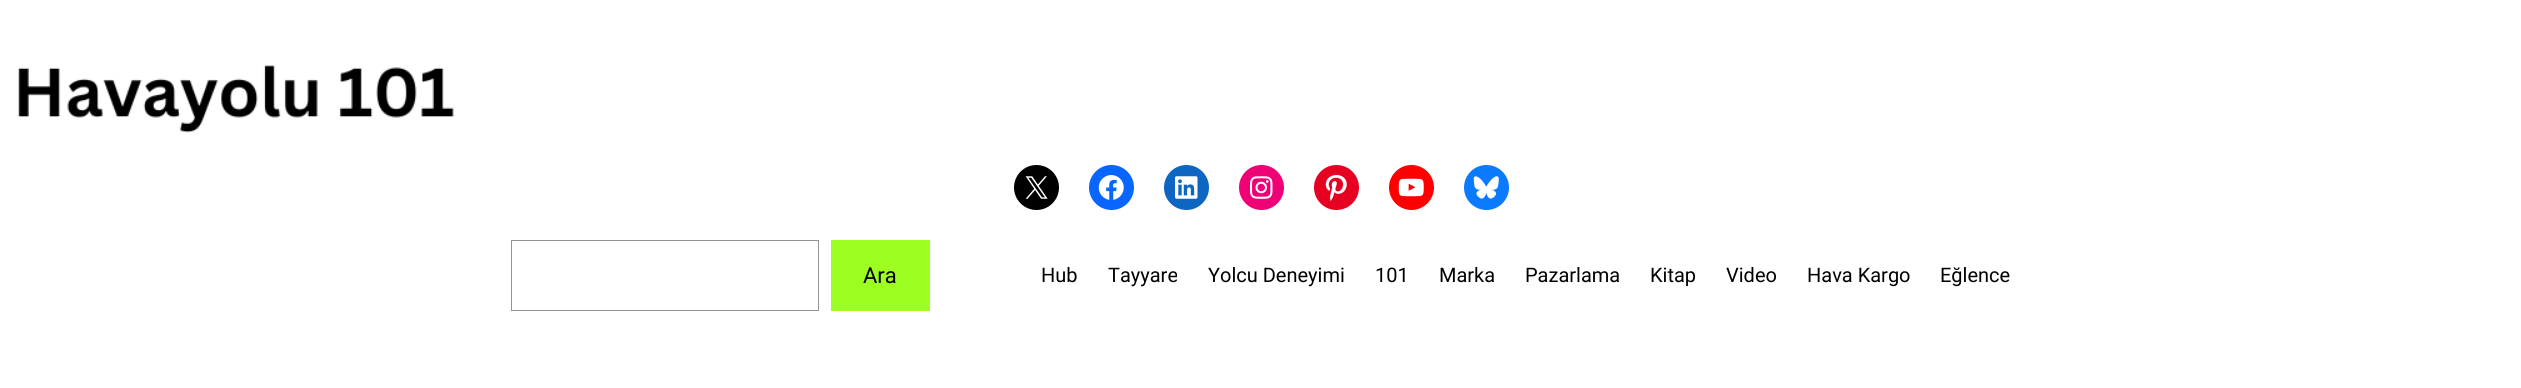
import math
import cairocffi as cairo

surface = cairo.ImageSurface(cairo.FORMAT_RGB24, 2521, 388)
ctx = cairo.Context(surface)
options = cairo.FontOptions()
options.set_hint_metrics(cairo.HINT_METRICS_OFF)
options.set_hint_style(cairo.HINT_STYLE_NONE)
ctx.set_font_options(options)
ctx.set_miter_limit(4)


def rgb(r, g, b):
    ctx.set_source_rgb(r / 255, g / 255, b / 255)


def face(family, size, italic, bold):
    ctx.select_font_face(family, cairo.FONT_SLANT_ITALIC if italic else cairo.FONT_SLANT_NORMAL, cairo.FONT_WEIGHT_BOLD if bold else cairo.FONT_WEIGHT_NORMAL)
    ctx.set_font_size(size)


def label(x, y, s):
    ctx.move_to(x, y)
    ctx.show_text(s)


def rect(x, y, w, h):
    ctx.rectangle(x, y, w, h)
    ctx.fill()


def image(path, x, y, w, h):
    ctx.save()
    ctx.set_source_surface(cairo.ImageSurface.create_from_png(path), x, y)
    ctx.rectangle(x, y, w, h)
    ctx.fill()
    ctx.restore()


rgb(255, 255, 255)
ctx.paint()
image('image0.png', 18, 65, 436, 68)
rgb(0, 0, 0)
ctx.arc(1036.5, 187.5, 22.5, 0, 2 * math.pi)
ctx.fill()
image('image1.png', 1025, 176, 23, 23)
rgb(8, 102, 255)
ctx.arc(1111.5, 187.5, 22.5, 0, 2 * math.pi)
ctx.fill()
image('image2.png', 1098, 175, 26, 25)
rgb(13, 102, 194)
ctx.arc(1186.5, 187.5, 22.5, 0, 2 * math.pi)
ctx.fill()
image('image3.png', 1175, 176, 23, 23)
rgb(240, 0, 117)
ctx.arc(1261.5, 187.5, 22.5, 0, 2 * math.pi)
ctx.fill()
image('image4.png', 1250, 176, 23, 23)
rgb(230, 1, 34)
ctx.arc(1336.5, 187.5, 22.5, 0, 2 * math.pi)
ctx.fill()
image('image5.png', 1325, 175, 22, 26)
rgb(255, 0, 0)
ctx.arc(1411.5, 187.5, 22.5, 0, 2 * math.pi)
ctx.fill()
image('image6.png', 1398, 178, 26, 19)
rgb(10, 122, 255)
ctx.arc(1486.5, 187.5, 22.5, 0, 2 * math.pi)
ctx.fill()
image('image7.png', 1473, 176, 26, 23)
ctx.rectangle(511.5, 240.5, 307, 70)
rgb(148, 148, 148)
ctx.set_line_width(1)
ctx.stroke()
rgb(157, 255, 32)
rect(831, 240, 99, 71)
face('Roboto', 22, 0, 0)
rgb(0, 0, 0)
label(863, 283, 'Ara')
face('Roboto', 20, 0, 0)
label(1041, 282, 'Hub')
label(1108, 282, 'Tayyare')
label(1208, 282, 'Yolcu Deneyimi')
label(1375, 282, '101')
label(1439, 282, 'Marka')
label(1525, 282, 'Pazarlama')
label(1650, 282, 'Kitap')
label(1726, 282, 'Video')
label(1807, 282, 'Hava Kargo')
label(1940, 282, 'Eğlence')
surface.write_to_png('render.png')
